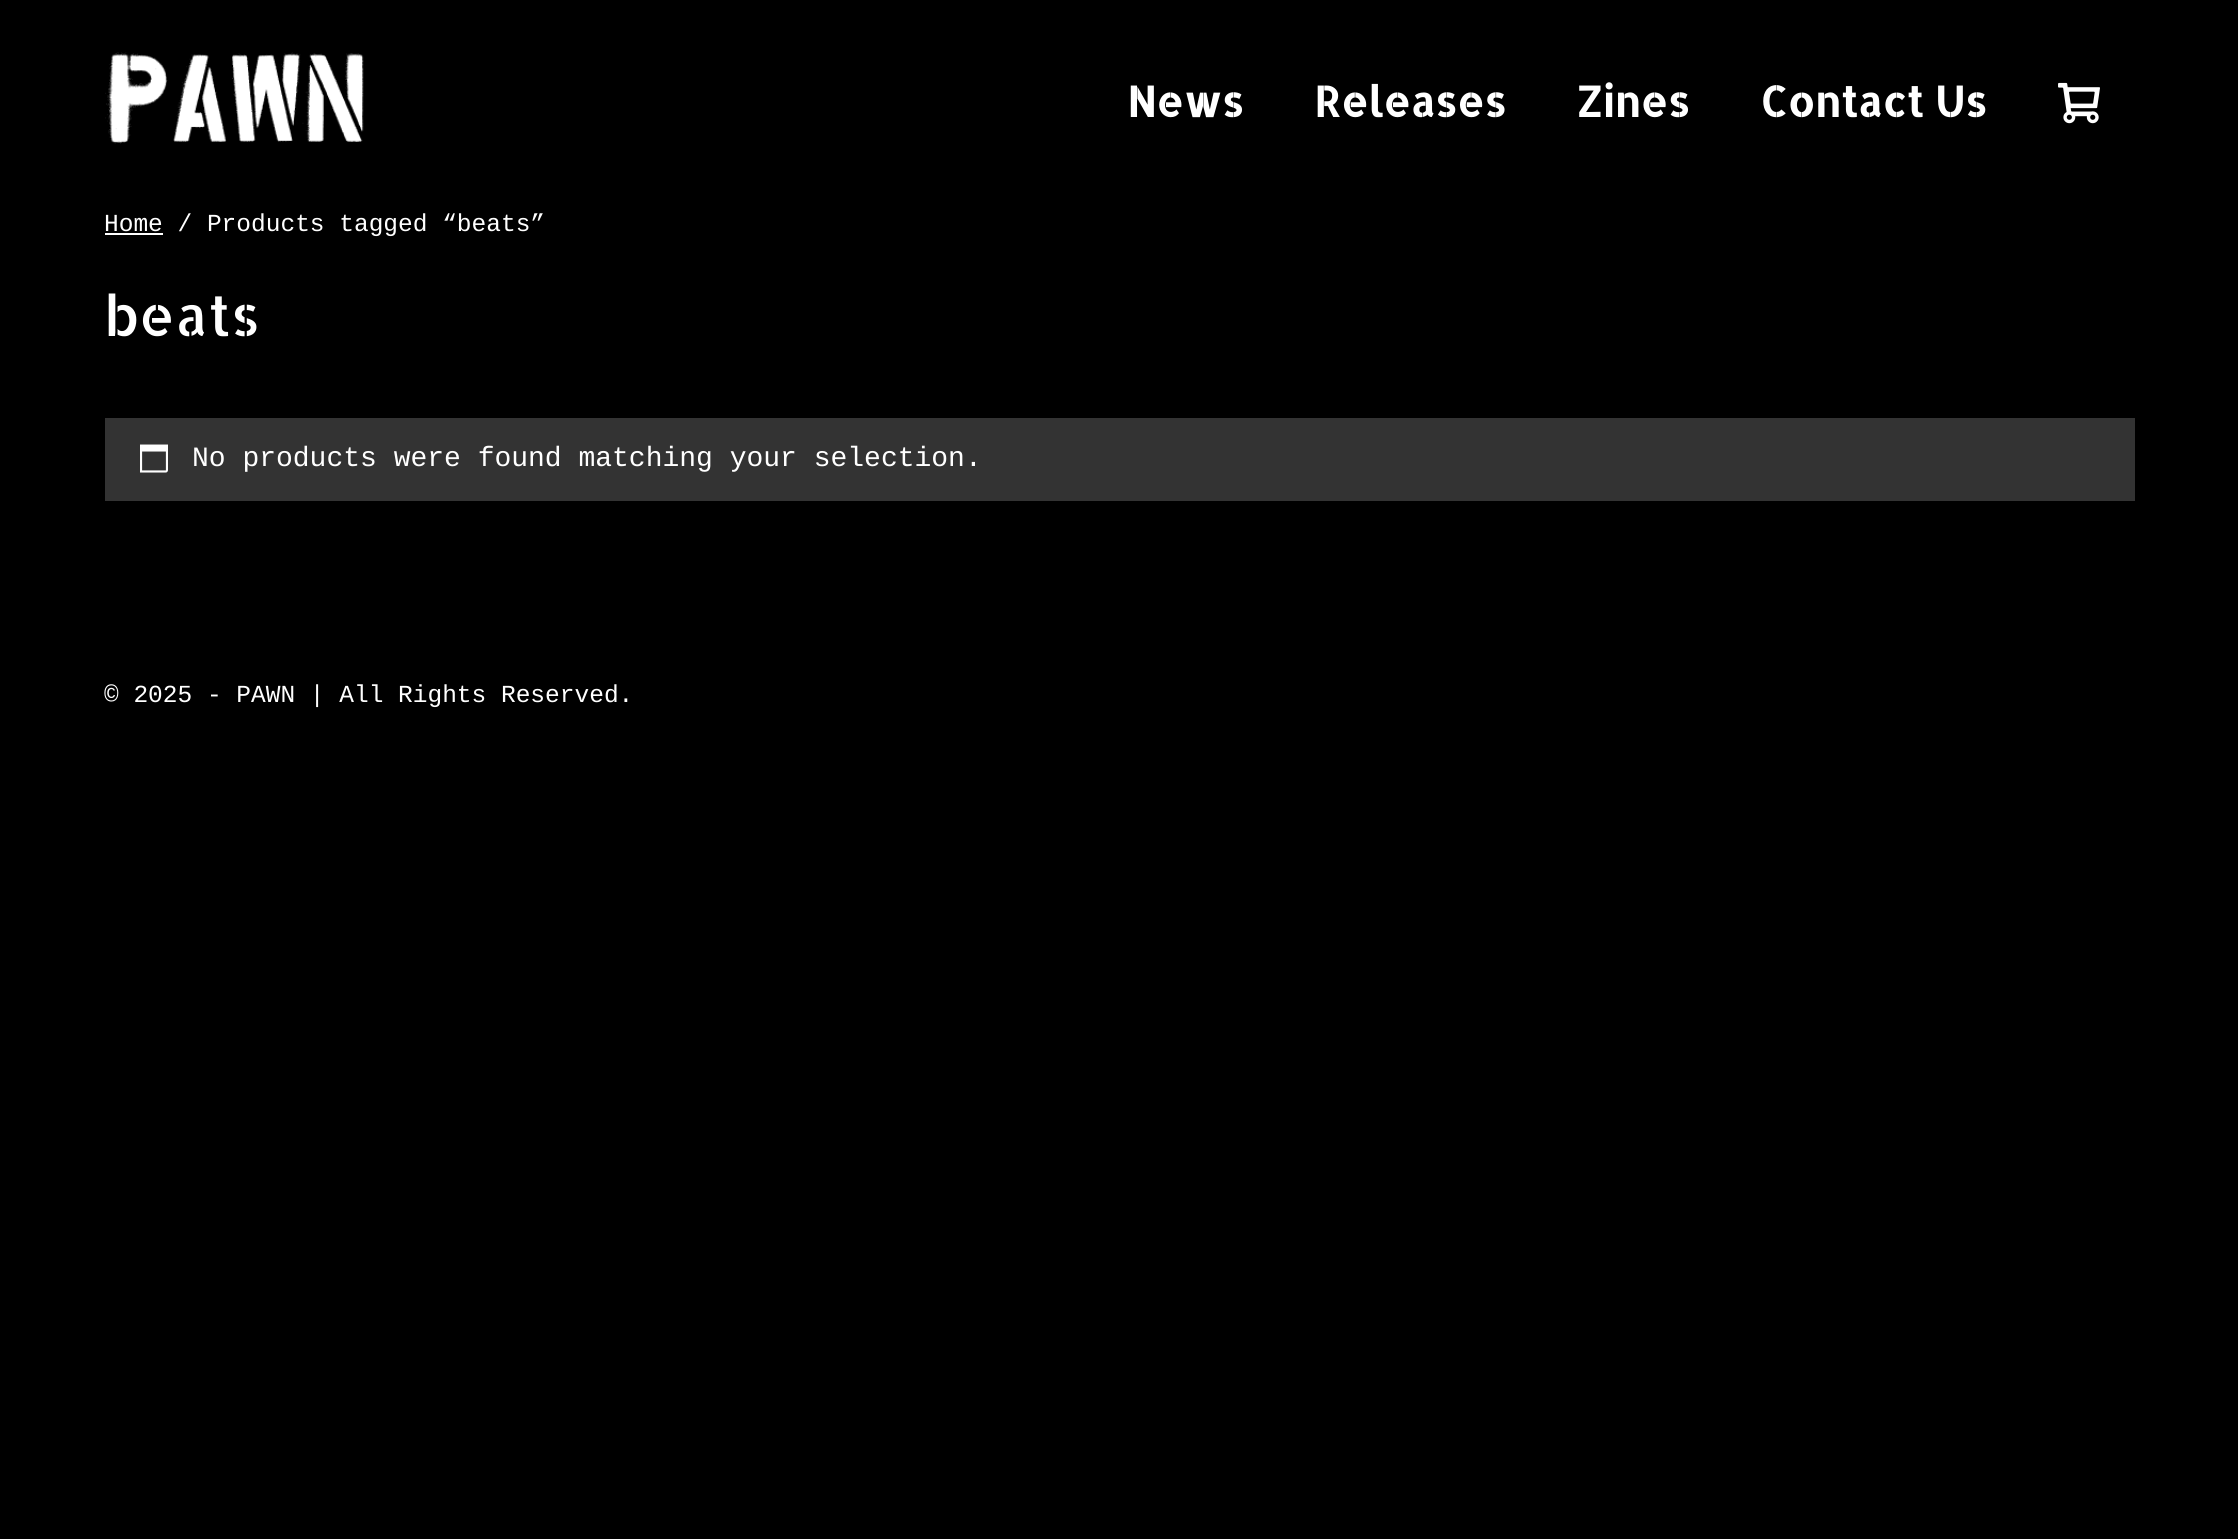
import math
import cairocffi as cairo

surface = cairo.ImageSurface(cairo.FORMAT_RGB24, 2238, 1539)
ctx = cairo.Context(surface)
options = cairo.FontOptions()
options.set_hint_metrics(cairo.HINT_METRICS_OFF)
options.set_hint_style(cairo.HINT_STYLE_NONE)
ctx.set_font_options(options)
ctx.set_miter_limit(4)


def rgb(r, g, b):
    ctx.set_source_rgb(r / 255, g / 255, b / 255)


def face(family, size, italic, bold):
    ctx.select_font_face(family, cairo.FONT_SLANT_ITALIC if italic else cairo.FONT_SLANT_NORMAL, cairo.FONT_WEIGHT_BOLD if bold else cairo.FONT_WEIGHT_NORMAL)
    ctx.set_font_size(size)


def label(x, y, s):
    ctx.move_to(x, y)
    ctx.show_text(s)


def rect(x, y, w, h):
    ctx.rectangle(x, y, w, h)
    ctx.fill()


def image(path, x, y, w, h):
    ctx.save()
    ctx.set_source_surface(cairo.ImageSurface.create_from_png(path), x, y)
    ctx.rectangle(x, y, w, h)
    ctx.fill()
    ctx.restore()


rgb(0, 0, 0)
ctx.paint()
image('image0.png', 105, 52, 259, 92)
face('Allerta Stencil', 42, 0, 1)
rgb(255, 255, 255)
label(1127, 117, 'News')
label(1314, 117, 'Releases')
label(1576, 117, 'Zines')
label(1760, 117, 'Contact Us')
image('image1.png', 2058, 82, 42, 42)
rect(105, 233, 58, 2)
face('Liberation Mono', 24.5, 0, 0)
label(104, 231, 'Home / Products tagged “beats”')
face('Allerta Stencil', 56, 0, 0)
label(104, 336, 'beats')
rgb(51, 51, 51)
rect(105, 418, 2030, 83)
image('image2.png', 140, 444, 28, 29)
face('Liberation Mono', 28, 0, 0)
rgb(255, 255, 255)
label(192, 466, 'No products were found matching your selection.')
face('Liberation Mono', 24.5, 0, 0)
label(104, 702, '© 2025 - PAWN | All Rights Reserved.')
surface.write_to_png('render.png')
